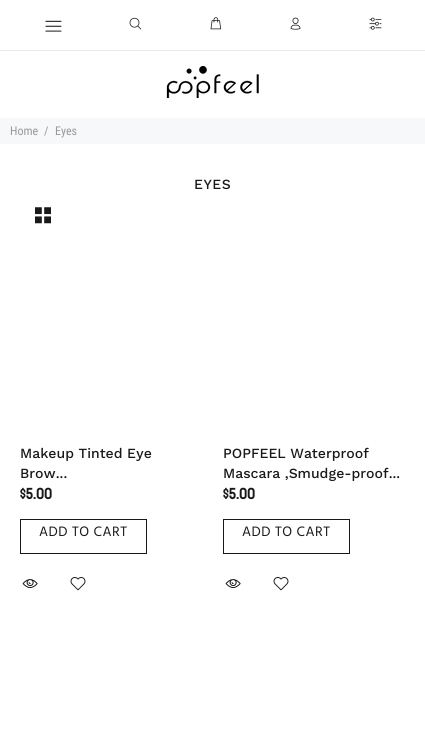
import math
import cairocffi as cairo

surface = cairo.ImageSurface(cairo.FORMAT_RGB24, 425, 732)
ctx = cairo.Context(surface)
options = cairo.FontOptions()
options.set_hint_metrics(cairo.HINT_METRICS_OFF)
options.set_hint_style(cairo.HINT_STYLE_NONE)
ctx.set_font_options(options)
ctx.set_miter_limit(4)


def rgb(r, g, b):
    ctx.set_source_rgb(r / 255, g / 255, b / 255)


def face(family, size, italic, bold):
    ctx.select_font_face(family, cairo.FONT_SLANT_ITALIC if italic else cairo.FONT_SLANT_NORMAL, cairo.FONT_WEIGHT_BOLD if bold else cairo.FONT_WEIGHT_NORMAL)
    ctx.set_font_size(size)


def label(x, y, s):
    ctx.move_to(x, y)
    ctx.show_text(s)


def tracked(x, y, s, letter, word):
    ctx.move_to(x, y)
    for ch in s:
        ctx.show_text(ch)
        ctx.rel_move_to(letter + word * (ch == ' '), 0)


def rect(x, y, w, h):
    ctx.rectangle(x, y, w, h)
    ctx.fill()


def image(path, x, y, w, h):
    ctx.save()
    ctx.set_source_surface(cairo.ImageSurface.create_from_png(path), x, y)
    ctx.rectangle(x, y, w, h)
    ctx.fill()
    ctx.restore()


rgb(255, 255, 255)
ctx.paint()
image('image0.png', 45, 20, 17, 12)
image('image1.png', 129, 17, 13, 13)
image('image2.png', 210, 17, 12, 13)
image('image3.png', 290, 17, 11, 13)
image('image4.png', 369, 17, 13, 13)
rgb(233, 231, 231)
rect(0, 50, 425, 1)
image('image5.png', 166, 66, 93, 32)
rgb(247, 248, 250)
rect(0, 118, 425, 26)
face('Roboto Condensed', 12, 0, 0)
rgb(153, 153, 153)
label(10, 135, 'Home')
label(44, 135, '/')
label(55, 135, 'Eyes')
face('Work Sans Medium', 14, 0, 0)
rgb(25, 25, 25)
tracked(194, 189, 'EYES', 0.5, 0)
image('image6.png', 35, 207, 16, 17)
label(20, 458, 'Makeup Tinted Eye')
label(20, 478, 'Brow...')
face('Staatliches', 16, 0, 0)
label(20, 499, '$5.00')
ctx.rectangle(20.5, 519.5, 126, 34)
ctx.set_line_width(1)
ctx.stroke()
face('Hind', 14, 0, 0)
tracked(39, 536, 'ADD TO CART', 0.5, 0)
image('image7.png', 22, 579, 16, 10)
image('image8.png', 70, 577, 16, 14)
face('Work Sans Medium', 14, 0, 0)
label(223, 458, 'POPFEEL Waterproof')
label(223, 478, 'Mascara ,Smudge-proof...')
face('Staatliches', 16, 0, 0)
label(223, 499, '$5.00')
ctx.rectangle(223.5, 519.5, 126, 34)
ctx.stroke()
face('Hind', 14, 0, 0)
tracked(242, 536, 'ADD TO CART', 0.5, 0)
image('image7.png', 225, 579, 16, 10)
image('image8.png', 273, 577, 16, 14)
surface.write_to_png('render.png')
